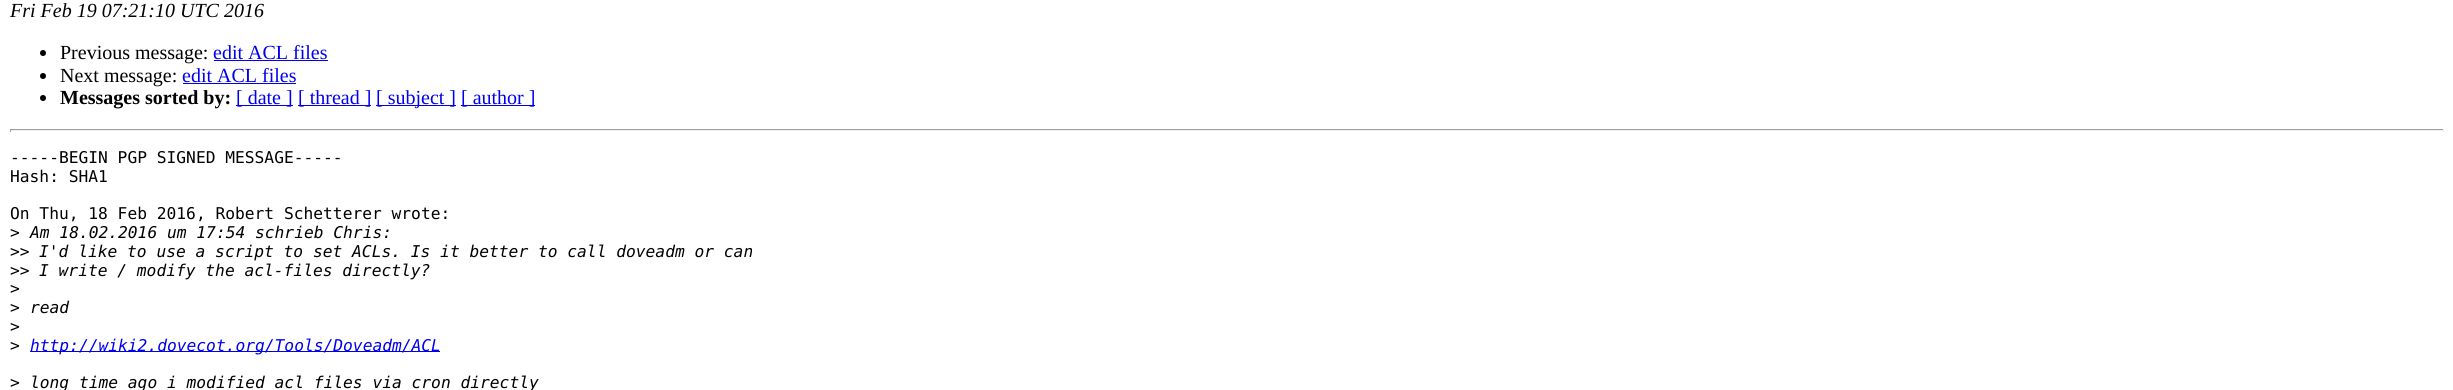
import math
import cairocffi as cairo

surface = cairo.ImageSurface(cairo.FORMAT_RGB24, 2453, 390)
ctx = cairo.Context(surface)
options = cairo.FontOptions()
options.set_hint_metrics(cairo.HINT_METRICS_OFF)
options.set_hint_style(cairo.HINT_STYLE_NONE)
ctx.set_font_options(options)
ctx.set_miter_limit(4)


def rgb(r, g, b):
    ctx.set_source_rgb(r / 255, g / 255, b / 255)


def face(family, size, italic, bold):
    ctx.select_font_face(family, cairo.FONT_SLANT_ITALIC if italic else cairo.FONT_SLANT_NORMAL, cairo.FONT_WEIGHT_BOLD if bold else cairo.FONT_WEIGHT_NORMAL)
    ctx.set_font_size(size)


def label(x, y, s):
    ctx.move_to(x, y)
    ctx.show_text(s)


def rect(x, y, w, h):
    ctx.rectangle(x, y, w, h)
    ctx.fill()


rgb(255, 255, 255)
ctx.paint()
face('Liberation Serif', 20, 1, 0)
rgb(0, 0, 0)
label(10, 17, 'Fri Feb 19 07:21:10 UTC 2016')
ctx.new_path()
ctx.arc(43, 53, 3, 0, 2 * math.pi)
ctx.fill()
face('Liberation Serif', 20, 0, 0)
label(60, 59, 'Previous message:')
rgb(0, 0, 238)
label(213, 59, 'edit ACL files')
rect(214, 60, 114, 1)
rgb(0, 0, 0)
ctx.new_path()
ctx.arc(43, 76, 3, 0, 2 * math.pi)
ctx.fill()
label(60, 82, 'Next message:')
rgb(0, 0, 238)
label(182, 82, 'edit ACL files')
rect(183, 83, 113, 1)
rgb(0, 0, 0)
ctx.new_path()
ctx.arc(43, 98, 3, 0, 2 * math.pi)
ctx.fill()
face('Liberation Serif', 20, 0, 1)
label(60, 104, 'Messages sorted by:')
rgb(0, 0, 238)
rect(236, 105, 57, 1)
face('Liberation Serif', 20, 0, 0)
label(236, 104, '[ date ]')
rect(298, 105, 73, 1)
label(298, 104, '[ thread ]')
rect(376, 105, 80, 1)
label(376, 104, '[ subject ]')
rect(461, 105, 74, 1)
label(461, 104, '[ author ]')
rgb(159, 159, 159)
rect(10, 129, 2434, 1)
rgb(238, 238, 238)
rect(2443, 129, 1, 3)
rect(10, 130, 2434, 1)
rgb(159, 159, 159)
rect(10, 129, 1, 3)
face('DejaVu Sans Mono', 16.25, 0, 0)
rgb(0, 0, 0)
label(10, 163, '-----BEGIN PGP SIGNED MESSAGE-----')
label(10, 182, 'Hash: SHA1')
label(10, 219, 'On Thu, 18 Feb 2016, Robert Schetterer wrote:')
label(10, 238, '>')
face('DejaVu Sans Mono', 16.25, 1, 0)
label(30, 238, 'Am 18.02.2016 um 17:54 schrieb Chris:')
face('DejaVu Sans Mono', 16.25, 0, 0)
label(10, 257, '>>')
face('DejaVu Sans Mono', 16.25, 1, 0)
label(39, 257, 'I\'d like to use a script to set ACLs. Is it better to call doveadm or can')
face('DejaVu Sans Mono', 16.25, 0, 0)
label(10, 276, '>>')
face('DejaVu Sans Mono', 16.25, 1, 0)
label(39, 276, 'I write / modify the acl-files directly?')
face('DejaVu Sans Mono', 16.25, 0, 0)
label(10, 294, '>')
label(10, 313, '>')
face('DejaVu Sans Mono', 16.25, 1, 0)
label(30, 313, 'read')
face('DejaVu Sans Mono', 16.25, 0, 0)
label(10, 332, '>')
label(10, 351, '>')
rgb(0, 0, 238)
rect(30, 351, 410, 1)
face('DejaVu Sans Mono', 16.25, 1, 0)
label(30, 351, 'http://wiki2.dovecot.org/Tools/Doveadm/ACL')
face('DejaVu Sans Mono', 16.25, 0, 0)
rgb(0, 0, 0)
label(10, 388, '>')
face('DejaVu Sans Mono', 16.25, 1, 0)
label(30, 388, 'long time ago i modified acl files via cron directly')
surface.write_to_png('render.png')
